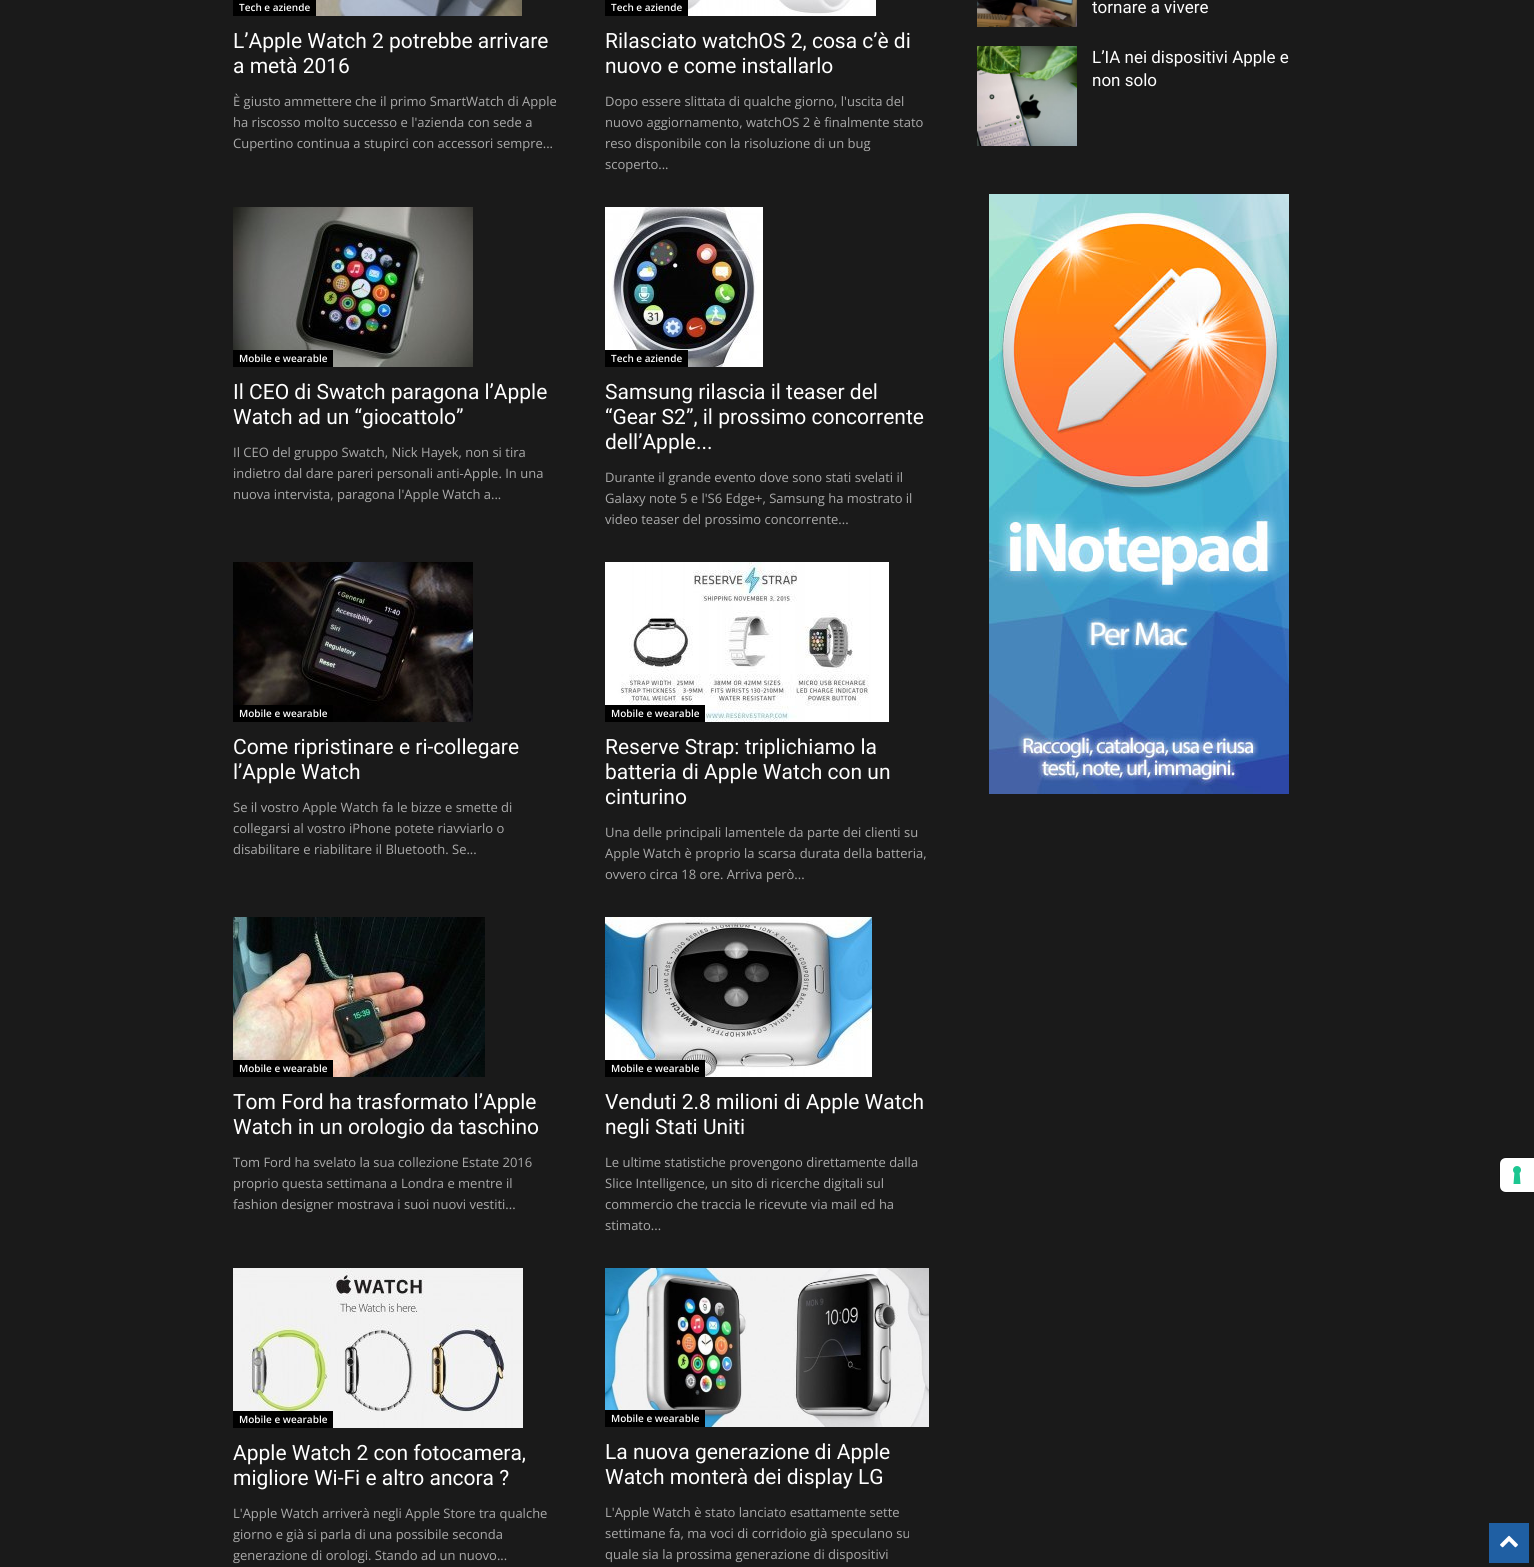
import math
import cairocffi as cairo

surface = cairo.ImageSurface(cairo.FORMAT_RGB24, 1534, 1567)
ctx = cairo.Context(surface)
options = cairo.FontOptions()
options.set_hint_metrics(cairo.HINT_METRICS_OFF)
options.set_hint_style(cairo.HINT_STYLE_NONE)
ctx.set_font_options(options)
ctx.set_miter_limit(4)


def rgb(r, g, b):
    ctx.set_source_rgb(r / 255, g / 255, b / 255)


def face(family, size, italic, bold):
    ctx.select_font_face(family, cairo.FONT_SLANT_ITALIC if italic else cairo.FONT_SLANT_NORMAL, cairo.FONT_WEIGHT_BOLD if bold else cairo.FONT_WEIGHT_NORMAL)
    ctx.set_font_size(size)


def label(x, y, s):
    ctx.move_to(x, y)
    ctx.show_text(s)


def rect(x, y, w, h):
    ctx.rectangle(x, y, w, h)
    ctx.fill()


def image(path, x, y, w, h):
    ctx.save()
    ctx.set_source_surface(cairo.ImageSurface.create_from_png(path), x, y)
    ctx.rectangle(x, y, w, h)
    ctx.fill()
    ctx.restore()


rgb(26, 26, 26)
ctx.paint()
rgb(0, 0, 0)
rect(233, 0, 83, 16)
face('Open Sans SemiBold', 10, 0, 0)
rgb(255, 255, 255)
label(239, 11, 'Tech e aziende')
image('image0.png', 316, 0, 206, 16)
face('Roboto', 21, 0, 0)
label(233, 48, 'L’Apple Watch 2 potrebbe arrivare')
label(233, 73, 'a metà 2016')
face('Open Sans', 13, 0, 0)
rgb(170, 170, 170)
label(233, 106, 'È giusto ammettere che il primo SmartWatch di Apple')
label(233, 127, 'ha riscosso molto successo e l\'azienda con sede a')
label(233, 148, 'Cupertino continua a stupirci con accessori sempre...')
rgb(0, 0, 0)
rect(605, 0, 83, 16)
face('Open Sans SemiBold', 10, 0, 0)
rgb(255, 255, 255)
label(611, 11, 'Tech e aziende')
image('image1.png', 688, 0, 188, 16)
face('Roboto', 21, 0, 0)
label(605, 48, 'Rilasciato watchOS 2, cosa c’è di')
label(605, 73, 'nuovo e come installarlo')
face('Open Sans', 13, 0, 0)
rgb(170, 170, 170)
label(605, 106, 'Dopo essere slittata di qualche giorno, l\'uscita del')
label(605, 127, 'nuovo aggiornamento, watchOS 2 è finalmente stato')
label(605, 148, 'reso disponibile con la risoluzione di un bug')
label(605, 169, 'scoperto...')
image('image2.png', 233, 207, 240, 160)
rgb(0, 0, 0)
rect(233, 350, 100, 17)
face('Open Sans SemiBold', 10, 0, 0)
rgb(255, 255, 255)
label(239, 362, 'Mobile e wearable')
face('Roboto', 21, 0, 0)
label(233, 399, 'Il CEO di Swatch paragona l’Apple')
label(233, 424, 'Watch ad un “giocattolo”')
face('Open Sans', 13, 0, 0)
rgb(170, 170, 170)
label(233, 457, 'Il CEO del gruppo Swatch, Nick Hayek, non si tira')
label(233, 478, 'indietro dal dare pareri personali anti-Apple. In una')
label(233, 499, 'nuova intervista, paragona l\'Apple Watch a...')
image('image3.png', 605, 207, 158, 160)
rgb(0, 0, 0)
rect(605, 350, 83, 17)
face('Open Sans SemiBold', 10, 0, 0)
rgb(255, 255, 255)
label(611, 362, 'Tech e aziende')
face('Roboto', 21, 0, 0)
label(605, 399, 'Samsung rilascia il teaser del')
label(605, 424, '“Gear S2”, il prossimo concorrente')
label(605, 449, 'dell’Apple...')
face('Open Sans', 13, 0, 0)
rgb(170, 170, 170)
label(605, 482, 'Durante il grande evento dove sono stati svelati il')
label(605, 503, 'Galaxy note 5 e l\'S6 Edge+, Samsung ha mostrato il')
label(605, 524, 'video teaser del prossimo concorrente...')
image('image4.png', 233, 562, 240, 160)
rgb(0, 0, 0)
rect(233, 705, 100, 17)
face('Open Sans SemiBold', 10, 0, 0)
rgb(255, 255, 255)
label(239, 717, 'Mobile e wearable')
face('Roboto', 21, 0, 0)
label(233, 754, 'Come ripristinare e ri-collegare')
label(233, 779, 'l’Apple Watch')
face('Open Sans', 13, 0, 0)
rgb(170, 170, 170)
label(233, 812, 'Se il vostro Apple Watch fa le bizze e smette di')
label(233, 833, 'collegarsi al vostro iPhone potete riavviarlo o')
label(233, 854, 'disabilitare e riabilitare il Bluetooth. Se...')
image('image5.png', 605, 562, 284, 160)
rgb(0, 0, 0)
rect(605, 705, 100, 17)
face('Open Sans SemiBold', 10, 0, 0)
rgb(255, 255, 255)
label(611, 717, 'Mobile e wearable')
face('Roboto', 21, 0, 0)
label(605, 754, 'Reserve Strap: triplichiamo la')
label(605, 779, 'batteria di Apple Watch con un')
label(605, 804, 'cinturino')
face('Open Sans', 13, 0, 0)
rgb(170, 170, 170)
label(605, 837, 'Una delle principali lamentele da parte dei clienti su')
label(605, 858, 'Apple Watch è proprio la scarsa durata della batteria,')
label(605, 879, 'ovvero circa 18 ore. Arriva però...')
image('image6.png', 233, 917, 252, 160)
rgb(0, 0, 0)
rect(233, 1060, 100, 17)
face('Open Sans SemiBold', 10, 0, 0)
rgb(255, 255, 255)
label(239, 1072, 'Mobile e wearable')
face('Roboto', 21, 0, 0)
label(233, 1109, 'Tom Ford ha trasformato l’Apple')
label(233, 1134, 'Watch in un orologio da taschino')
face('Open Sans', 13, 0, 0)
rgb(170, 170, 170)
label(233, 1167, 'Tom Ford ha svelato la sua collezione Estate 2016')
label(233, 1188, 'proprio questa settimana a Londra e mentre il')
label(233, 1209, 'fashion designer mostrava i suoi nuovi vestiti...')
image('image7.png', 605, 917, 267, 160)
rgb(0, 0, 0)
rect(605, 1060, 100, 17)
face('Open Sans SemiBold', 10, 0, 0)
rgb(255, 255, 255)
label(611, 1072, 'Mobile e wearable')
face('Roboto', 21, 0, 0)
label(605, 1109, 'Venduti 2.8 milioni di Apple Watch')
label(605, 1134, 'negli Stati Uniti')
face('Open Sans', 13, 0, 0)
rgb(170, 170, 170)
label(605, 1167, 'Le ultime statistiche provengono direttamente dalla')
label(605, 1188, 'Slice Intelligence, un sito di ricerche digitali sul')
label(605, 1209, 'commercio che traccia le ricevute via mail ed ha')
label(605, 1230, 'stimato...')
image('image8.png', 233, 1268, 290, 160)
rgb(0, 0, 0)
rect(233, 1411, 100, 17)
face('Open Sans SemiBold', 10, 0, 0)
rgb(255, 255, 255)
label(239, 1423, 'Mobile e wearable')
face('Roboto', 21, 0, 0)
label(233, 1460, 'Apple Watch 2 con fotocamera,')
label(233, 1485, 'migliore Wi-Fi e altro ancora ?')
face('Open Sans', 13, 0, 0)
rgb(170, 170, 170)
label(233, 1518, 'L\'Apple Watch arriverà negli Apple Store tra qualche')
label(233, 1539, 'giorno e già si parla di una possibile seconda')
label(233, 1560, 'generazione di orologi. Stando ad un nuovo...')
image('image9.png', 605, 1268, 324, 159)
rgb(0, 0, 0)
rect(605, 1410, 100, 17)
face('Open Sans SemiBold', 10, 0, 0)
rgb(255, 255, 255)
label(611, 1422, 'Mobile e wearable')
face('Roboto', 21, 0, 0)
label(605, 1459, 'La nuova generazione di Apple')
label(605, 1484, 'Watch monterà dei display LG')
face('Open Sans', 13, 0, 0)
rgb(170, 170, 170)
label(605, 1517, 'L\'Apple Watch è stato lanciato esattamente sette')
label(605, 1538, 'settimane fa, ma voci di corridoio già speculano su')
label(605, 1559, 'quale sia la prossima generazione di dispositivi')
image('image10.png', 977, 0, 100, 27)
face('Roboto', 17, 0, 0)
rgb(255, 255, 255)
label(1092, 13, 'tornare a vivere')
image('image11.png', 977, 46, 100, 100)
label(1092, 63, 'L’IA nei dispositivi Apple e')
label(1092, 86, 'non solo')
image('image12.png', 989, 194, 300, 600)
ctx.new_path()
ctx.move_to(1506, 1157.5)
ctx.line_to(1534.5, 1157.5)
ctx.line_to(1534.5, 1192.5)
ctx.line_to(1506, 1192.5)
ctx.curve_to(1502.5, 1192.5, 1499.5, 1189.5, 1499.5, 1186)
ctx.line_to(1499.5, 1164)
ctx.curve_to(1499.5, 1160.5, 1502.5, 1157.5, 1506, 1157.5)
ctx.close_path()
rgb(22, 22, 22)
ctx.set_line_width(1)
ctx.stroke()
rgb(255, 255, 255)
ctx.new_path()
ctx.move_to(1506, 1158)
ctx.line_to(1534, 1158)
ctx.line_to(1534, 1192)
ctx.line_to(1506, 1192)
ctx.curve_to(1502.5, 1192, 1500, 1189.5, 1500, 1186)
ctx.line_to(1500, 1164)
ctx.curve_to(1500, 1160.5, 1502.5, 1158, 1506, 1158)
ctx.close_path()
ctx.fill()
image('image13.png', 1513, 1166, 8, 18)
rgb(31, 95, 163)
rect(1489, 1523, 40, 40)
image('image14.png', 1500, 1535, 18, 13)
surface.write_to_png('render.png')
